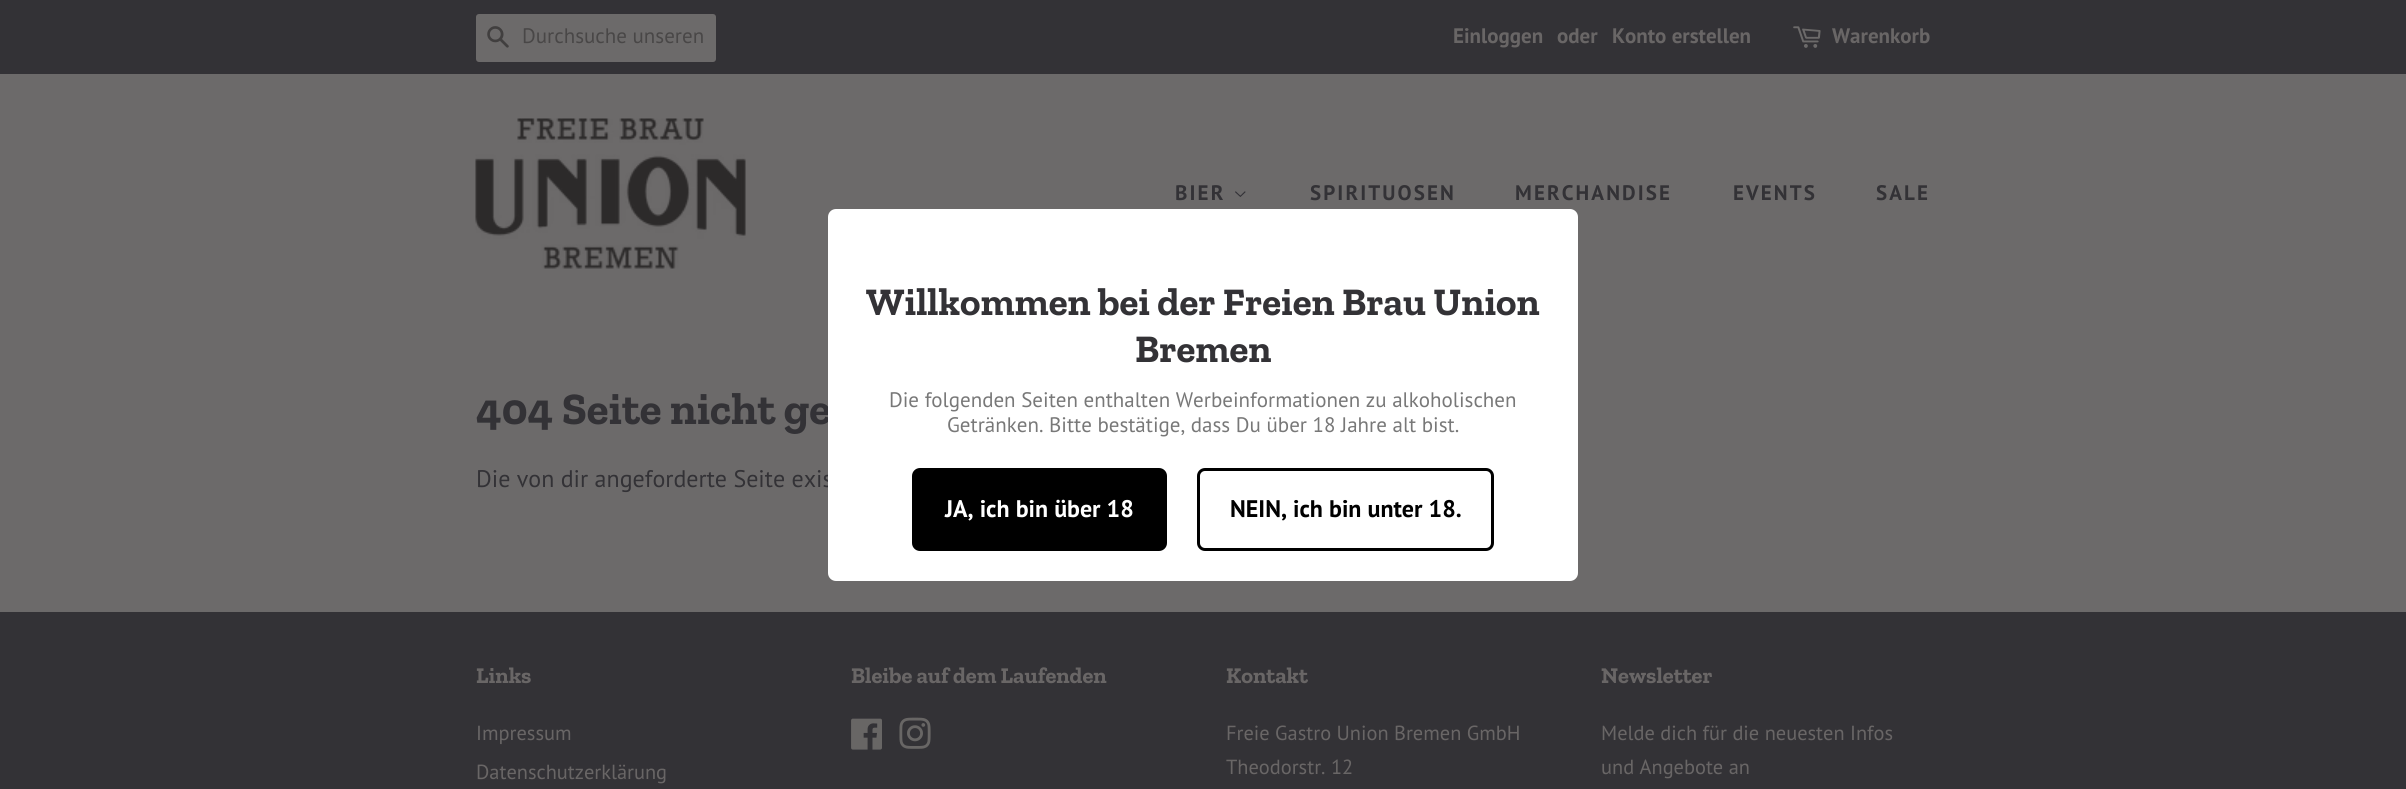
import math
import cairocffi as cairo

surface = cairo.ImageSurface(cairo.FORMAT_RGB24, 2406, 789)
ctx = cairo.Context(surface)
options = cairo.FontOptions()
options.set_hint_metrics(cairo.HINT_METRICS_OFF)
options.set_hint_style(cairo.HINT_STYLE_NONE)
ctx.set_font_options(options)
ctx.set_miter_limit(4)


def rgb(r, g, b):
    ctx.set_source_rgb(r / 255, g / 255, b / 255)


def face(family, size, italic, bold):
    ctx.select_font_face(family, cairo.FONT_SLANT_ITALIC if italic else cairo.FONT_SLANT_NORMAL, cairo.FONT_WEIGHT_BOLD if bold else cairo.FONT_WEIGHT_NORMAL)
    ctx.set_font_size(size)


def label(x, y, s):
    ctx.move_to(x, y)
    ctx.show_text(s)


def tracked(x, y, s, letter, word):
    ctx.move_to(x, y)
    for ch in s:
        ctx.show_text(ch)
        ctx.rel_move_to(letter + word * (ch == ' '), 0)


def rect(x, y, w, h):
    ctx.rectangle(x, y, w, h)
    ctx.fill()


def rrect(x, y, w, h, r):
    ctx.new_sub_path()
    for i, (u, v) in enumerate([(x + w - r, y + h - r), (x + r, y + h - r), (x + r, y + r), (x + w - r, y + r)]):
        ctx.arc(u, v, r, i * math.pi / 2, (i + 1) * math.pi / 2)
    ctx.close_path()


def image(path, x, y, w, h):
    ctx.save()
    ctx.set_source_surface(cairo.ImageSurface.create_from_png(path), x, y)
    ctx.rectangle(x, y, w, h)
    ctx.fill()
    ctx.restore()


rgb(108, 106, 106)
ctx.paint()
rgb(51, 50, 54)
rect(0, 0, 2406, 74)
rgb(108, 106, 106)
rrect(476, 14, 240, 48, 3)
ctx.fill()
image('image0.png', 487, 26, 22, 22)
face('PT Sans', 21, 0, 0)
rgb(73, 71, 71)
label(522, 43, 'Durchsuche unseren')
face('PT Sans', 21, 0, 1)
rgb(105, 102, 102)
label(1453, 43, 'Einloggen')
label(1557, 43, 'oder')
label(1612, 43, 'Konto erstellen')
image('image1.png', 1793, 26, 28, 22)
label(1832, 43, 'Warenkorb')
image('image2.png', 475, 118, 271, 151)
rgb(51, 50, 54)
tracked(1175, 200, 'BIER', 2.1, 0)
image('image3.png', 1235, 191, 11, 6)
tracked(1310, 200, 'SPIRITUOSEN', 2.1, 0)
tracked(1515, 200, 'MERCHANDISE', 2.1, 0)
tracked(1733, 200, 'EVENTS', 2.1, 0)
tracked(1876, 200, 'SALE', 2.1, 0)
face('Zilla Slab', 45, 0, 1)
label(476, 424, '404 Seite nicht ge')
face('PT Sans', 24, 0, 0)
label(476, 487, 'Die von dir angeforderte Seite exis')
rgb(255, 255, 255)
rrect(828, 209, 750, 372, 8)
ctx.fill()
face('Zilla Slab', 39, 0, 1)
rgb(51, 50, 54)
label(866, 315, 'Willkommen bei der Freien Brau Union')
label(1135, 362, 'Bremen')
face('PT Sans', 21, 0, 0)
rgb(120, 120, 120)
label(889, 407, 'Die folgenden Seiten enthalten Werbeinformationen zu alkoholischen')
label(947, 432, 'Getränken. Bitte bestätige, dass Du über 18 Jahre alt bist.')
rgb(0, 0, 0)
rrect(913.5, 469.5, 252, 80, 6.5)
ctx.fill_preserve()
ctx.set_line_width(3)
ctx.stroke()
face('PT Sans', 24, 0, 1)
rgb(255, 255, 255)
label(945, 517, 'JA, ich bin über 18')
rrect(1198.5, 469.5, 294, 80, 6.5)
rgb(0, 0, 0)
ctx.stroke()
label(1230, 517, 'NEIN, ich bin unter 18.')
rgb(51, 50, 54)
rect(0, 612, 2406, 177)
face('Zilla Slab', 22.5, 0, 1)
rgb(105, 102, 102)
label(476, 683, 'Links')
face('PT Sans', 20.4, 0, 0)
label(476, 740, 'Impressum')
label(476, 779, 'Datenschutzerklärung')
face('Zilla Slab', 22.5, 0, 1)
label(851, 683, 'Bleibe auf dem Laufenden')
image('image4.png', 851, 718, 31, 32)
image('image5.png', 899, 717, 32, 32)
label(1226, 683, 'Kontakt')
face('PT Sans', 20.4, 0, 0)
label(1226, 740, 'Freie Gastro Union Bremen GmbH')
label(1226, 774, 'Theodorstr. 12')
face('Zilla Slab', 22.5, 0, 1)
label(1601, 683, 'Newsletter')
face('PT Sans', 20.4, 0, 0)
label(1601, 740, 'Melde dich für die neuesten Infos')
label(1601, 774, 'und Angebote an')
surface.write_to_png('render.png')
